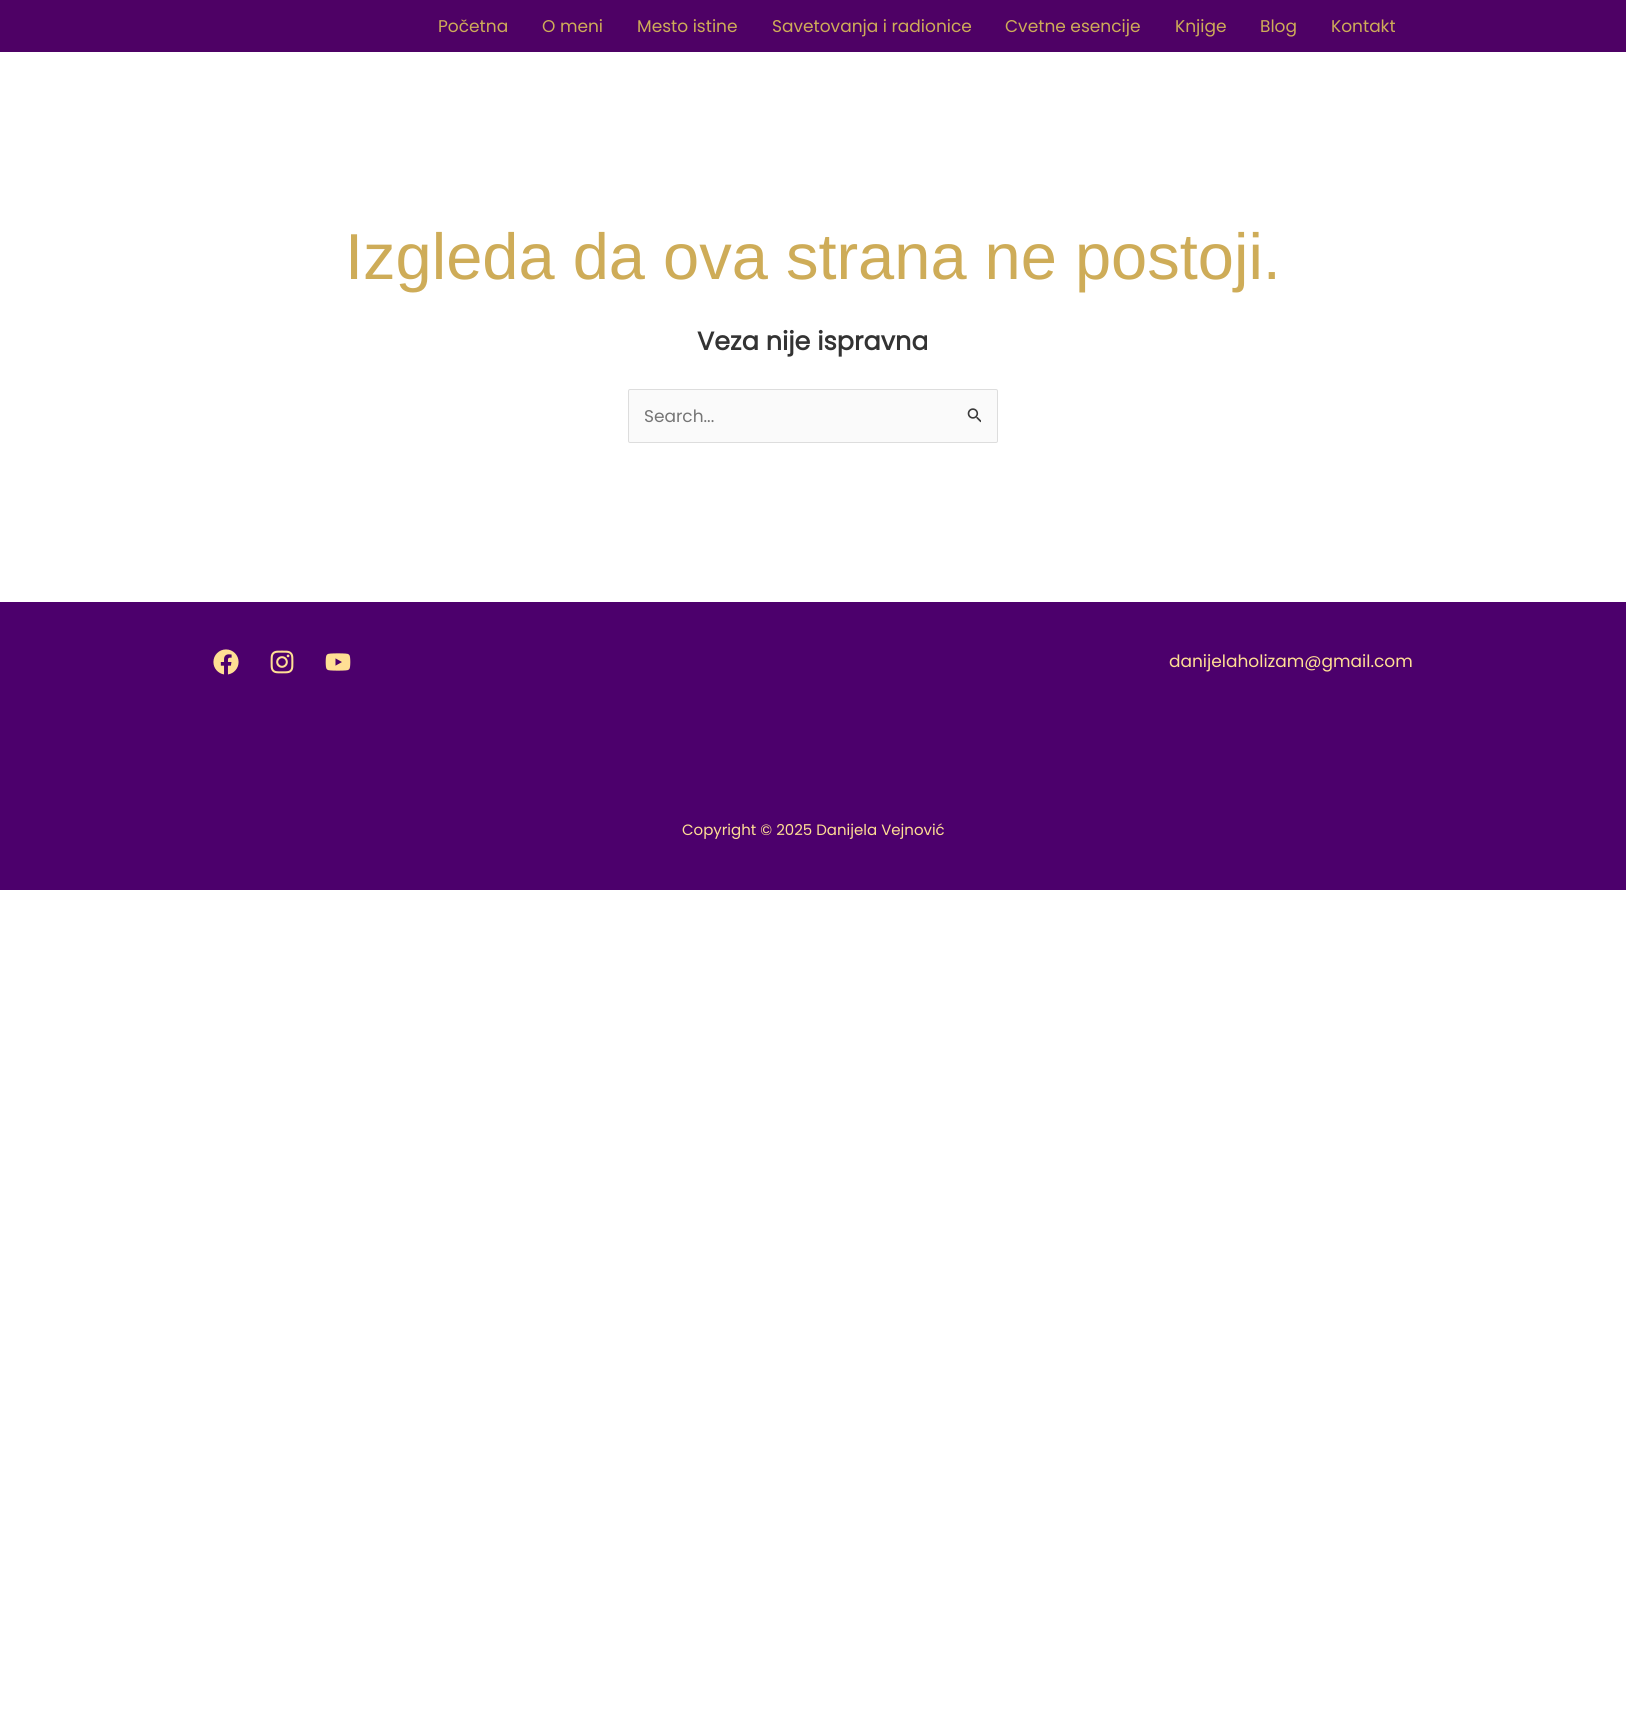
import math
import cairocffi as cairo

surface = cairo.ImageSurface(cairo.FORMAT_RGB24, 1626, 1736)
ctx = cairo.Context(surface)
options = cairo.FontOptions()
options.set_hint_metrics(cairo.HINT_METRICS_OFF)
options.set_hint_style(cairo.HINT_STYLE_NONE)
ctx.set_font_options(options)
ctx.set_miter_limit(4)


def rgb(r, g, b):
    ctx.set_source_rgb(r / 255, g / 255, b / 255)


def face(family, size, italic, bold):
    ctx.select_font_face(family, cairo.FONT_SLANT_ITALIC if italic else cairo.FONT_SLANT_NORMAL, cairo.FONT_WEIGHT_BOLD if bold else cairo.FONT_WEIGHT_NORMAL)
    ctx.set_font_size(size)


def label(x, y, s):
    ctx.move_to(x, y)
    ctx.show_text(s)


def rect(x, y, w, h):
    ctx.rectangle(x, y, w, h)
    ctx.fill()


def rrect(x, y, w, h, r):
    ctx.new_sub_path()
    for i, (u, v) in enumerate([(x + w - r, y + h - r), (x + r, y + h - r), (x + r, y + r), (x + w - r, y + r)]):
        ctx.arc(u, v, r, i * math.pi / 2, (i + 1) * math.pi / 2)
    ctx.close_path()


def image(path, x, y, w, h):
    ctx.save()
    ctx.set_source_surface(cairo.ImageSurface.create_from_png(path), x, y)
    ctx.rectangle(x, y, w, h)
    ctx.fill()
    ctx.restore()


rgb(255, 255, 255)
ctx.paint()
rgb(78, 1, 101)
rect(0, 0, 1626, 52)
face('Poppins', 17, 0, 0)
rgb(206, 172, 88)
label(438, 32, 'Početna')
label(542, 32, 'O meni')
label(637, 32, 'Mesto istine')
label(772, 32, 'Savetovanja i radionice')
label(1005, 32, 'Cvetne esencije')
label(1175, 32, 'Knjige')
label(1260, 32, 'Blog')
label(1331, 32, 'Kontakt')
face('Liberation Sans', 65, 0, 0)
label(345, 279, 'Izgleda da ova strana ne postoji.')
face('Poppins', 25.5, 0, 1)
rgb(51, 51, 51)
label(697, 350, 'Veza nije ispravna')
rgb(250, 250, 250)
rrect(628.5, 389.5, 369, 53, 1.5)
ctx.fill_preserve()
rgb(221, 221, 221)
ctx.set_line_width(1)
ctx.stroke()
face('Poppins', 17, 0, 0)
rgb(117, 117, 117)
label(644, 422, 'Search...')
image('image0.png', 967, 408, 14, 15)
rgb(76, 0, 108)
rect(0, 602, 1626, 288)
image('image1.png', 213, 649, 26, 26)
image('image2.png', 270, 650, 24, 24)
image('image3.png', 325, 653, 26, 18)
rgb(255, 223, 148)
label(1169, 667, 'danijelaholizam@gmail.com')
face('Poppins', 15, 0, 0)
label(682, 835, 'Copyright © 2025 Danijela Vejnović')
surface.write_to_png('render.png')
